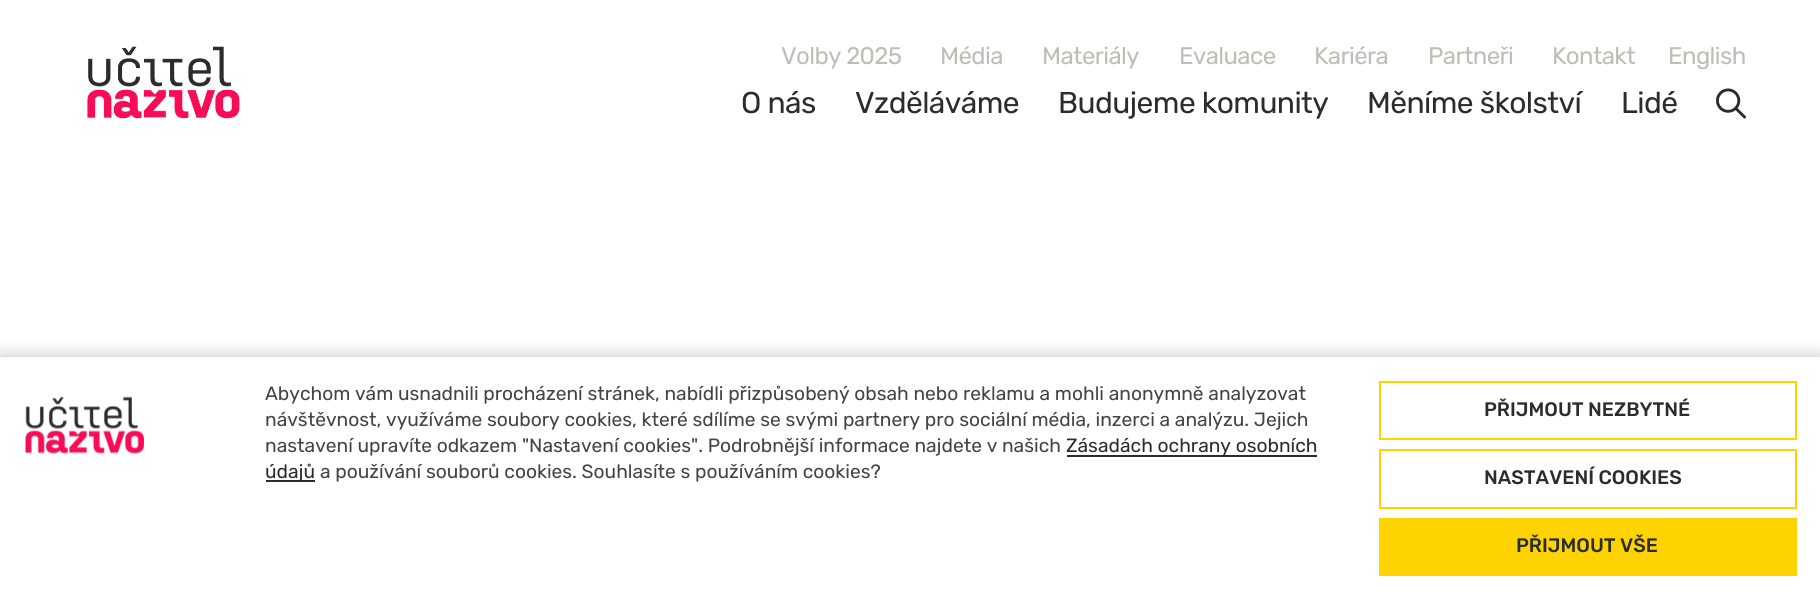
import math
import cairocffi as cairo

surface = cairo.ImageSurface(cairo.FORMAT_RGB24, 1820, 600)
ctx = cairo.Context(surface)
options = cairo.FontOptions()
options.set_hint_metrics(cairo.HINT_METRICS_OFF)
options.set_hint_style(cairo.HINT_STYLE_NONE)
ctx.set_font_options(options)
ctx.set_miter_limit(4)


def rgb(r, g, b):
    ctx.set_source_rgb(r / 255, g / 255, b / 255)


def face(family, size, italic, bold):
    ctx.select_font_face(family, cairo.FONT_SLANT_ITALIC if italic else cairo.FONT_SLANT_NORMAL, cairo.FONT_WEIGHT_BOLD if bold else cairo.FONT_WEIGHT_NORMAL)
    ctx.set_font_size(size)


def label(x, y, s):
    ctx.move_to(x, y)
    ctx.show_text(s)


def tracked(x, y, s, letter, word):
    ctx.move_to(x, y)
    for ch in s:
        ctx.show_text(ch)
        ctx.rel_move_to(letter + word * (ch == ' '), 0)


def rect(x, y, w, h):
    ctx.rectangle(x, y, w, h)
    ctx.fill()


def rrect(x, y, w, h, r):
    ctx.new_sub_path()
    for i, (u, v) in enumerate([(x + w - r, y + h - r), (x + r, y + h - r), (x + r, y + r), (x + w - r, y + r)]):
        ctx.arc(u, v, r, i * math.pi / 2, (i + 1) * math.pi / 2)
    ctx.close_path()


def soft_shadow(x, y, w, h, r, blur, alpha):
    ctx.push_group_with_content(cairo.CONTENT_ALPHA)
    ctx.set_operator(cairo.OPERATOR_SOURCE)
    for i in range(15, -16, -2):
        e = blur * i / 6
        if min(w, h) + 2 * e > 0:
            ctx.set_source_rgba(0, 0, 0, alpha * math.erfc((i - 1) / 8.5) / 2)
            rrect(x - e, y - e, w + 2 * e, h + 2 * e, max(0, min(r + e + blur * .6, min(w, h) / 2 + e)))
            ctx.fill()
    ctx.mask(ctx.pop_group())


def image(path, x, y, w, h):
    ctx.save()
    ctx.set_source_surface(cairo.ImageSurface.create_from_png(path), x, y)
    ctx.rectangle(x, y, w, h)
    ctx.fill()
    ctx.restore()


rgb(255, 255, 255)
ctx.paint()
image('image0.png', 87, 46, 153, 73)
face('Rubik', 24, 0, 0)
rgb(192, 190, 180)
tracked(781, 64, 'Volby 2025', -0.6, 0)
tracked(940, 64, 'Média', -0.6, 0)
tracked(1042, 64, 'Materiály', -0.6, 0)
tracked(1179, 64, 'Evaluace', -0.6, 0)
tracked(1314, 64, 'Kariéra', -0.6, 0)
tracked(1428, 64, 'Partneři', -0.6, 0)
tracked(1552, 64, 'Kontakt', -0.6, 0)
tracked(1668, 64, 'English', -0.6, 0)
face('Rubik', 30, 0, 0)
rgb(44, 44, 44)
tracked(741, 113, 'O nás', -0.6, 0)
tracked(855, 113, 'Vzděláváme', -0.6, 0)
tracked(1058, 113, 'Budujeme komunity', -0.6, 0)
tracked(1367, 113, 'Měníme školství', -0.6, 0)
tracked(1621, 113, 'Lidé', -0.6, 0)
image('image1.png', 1716, 88, 30, 31)
rgb(0, 0, 0)
soft_shadow(0, 357, 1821, 243, 0, 9, 0.25)
rgb(255, 255, 255)
rect(0, 357, 1820, 243)
image('image2.png', 25, 396, 119, 58)
face('Rubik', 19.2, 0, 0)
rgb(68, 68, 68)
label(265, 400, 'Abychom vám usnadnili procházení stránek, nabídli přizpůsobený obsah nebo reklamu a mohli anonymně analyzovat')
label(265, 426, 'návštěvnost, využíváme soubory cookies, které sdílíme se svými partnery pro sociální média, inzerci a analýzu. Jejich')
label(265, 452, 'nastavení upravíte odkazem "Nastavení cookies". Podrobnější informace najdete v našich')
rgb(44, 44, 44)
rect(1067, 455, 250, 2)
label(1066, 452, 'Zásadách ochrany osobních')
rect(266, 480, 49, 2)
label(265, 478, 'údajů')
rgb(68, 68, 68)
label(320, 478, 'a používání souborů cookies. Souhlasíte s používáním cookies?')
ctx.rectangle(1380, 382, 416, 57)
rgb(255, 211, 0)
ctx.stroke()
face('Rubik Medium', 19.5, 0, 0)
rgb(44, 44, 44)
label(1484, 416, 'PŘIJMOUT NEZBYTNÉ')
ctx.rectangle(1380, 450, 416, 58)
rgb(255, 211, 0)
ctx.stroke()
rgb(44, 44, 44)
label(1484, 484, 'NASTAVENÍ COOKIES')
rgb(255, 211, 0)
rect(1379, 518, 418, 58)
rgb(44, 44, 44)
label(1516, 552, 'PŘIJMOUT VŠE')
surface.write_to_png('render.png')
